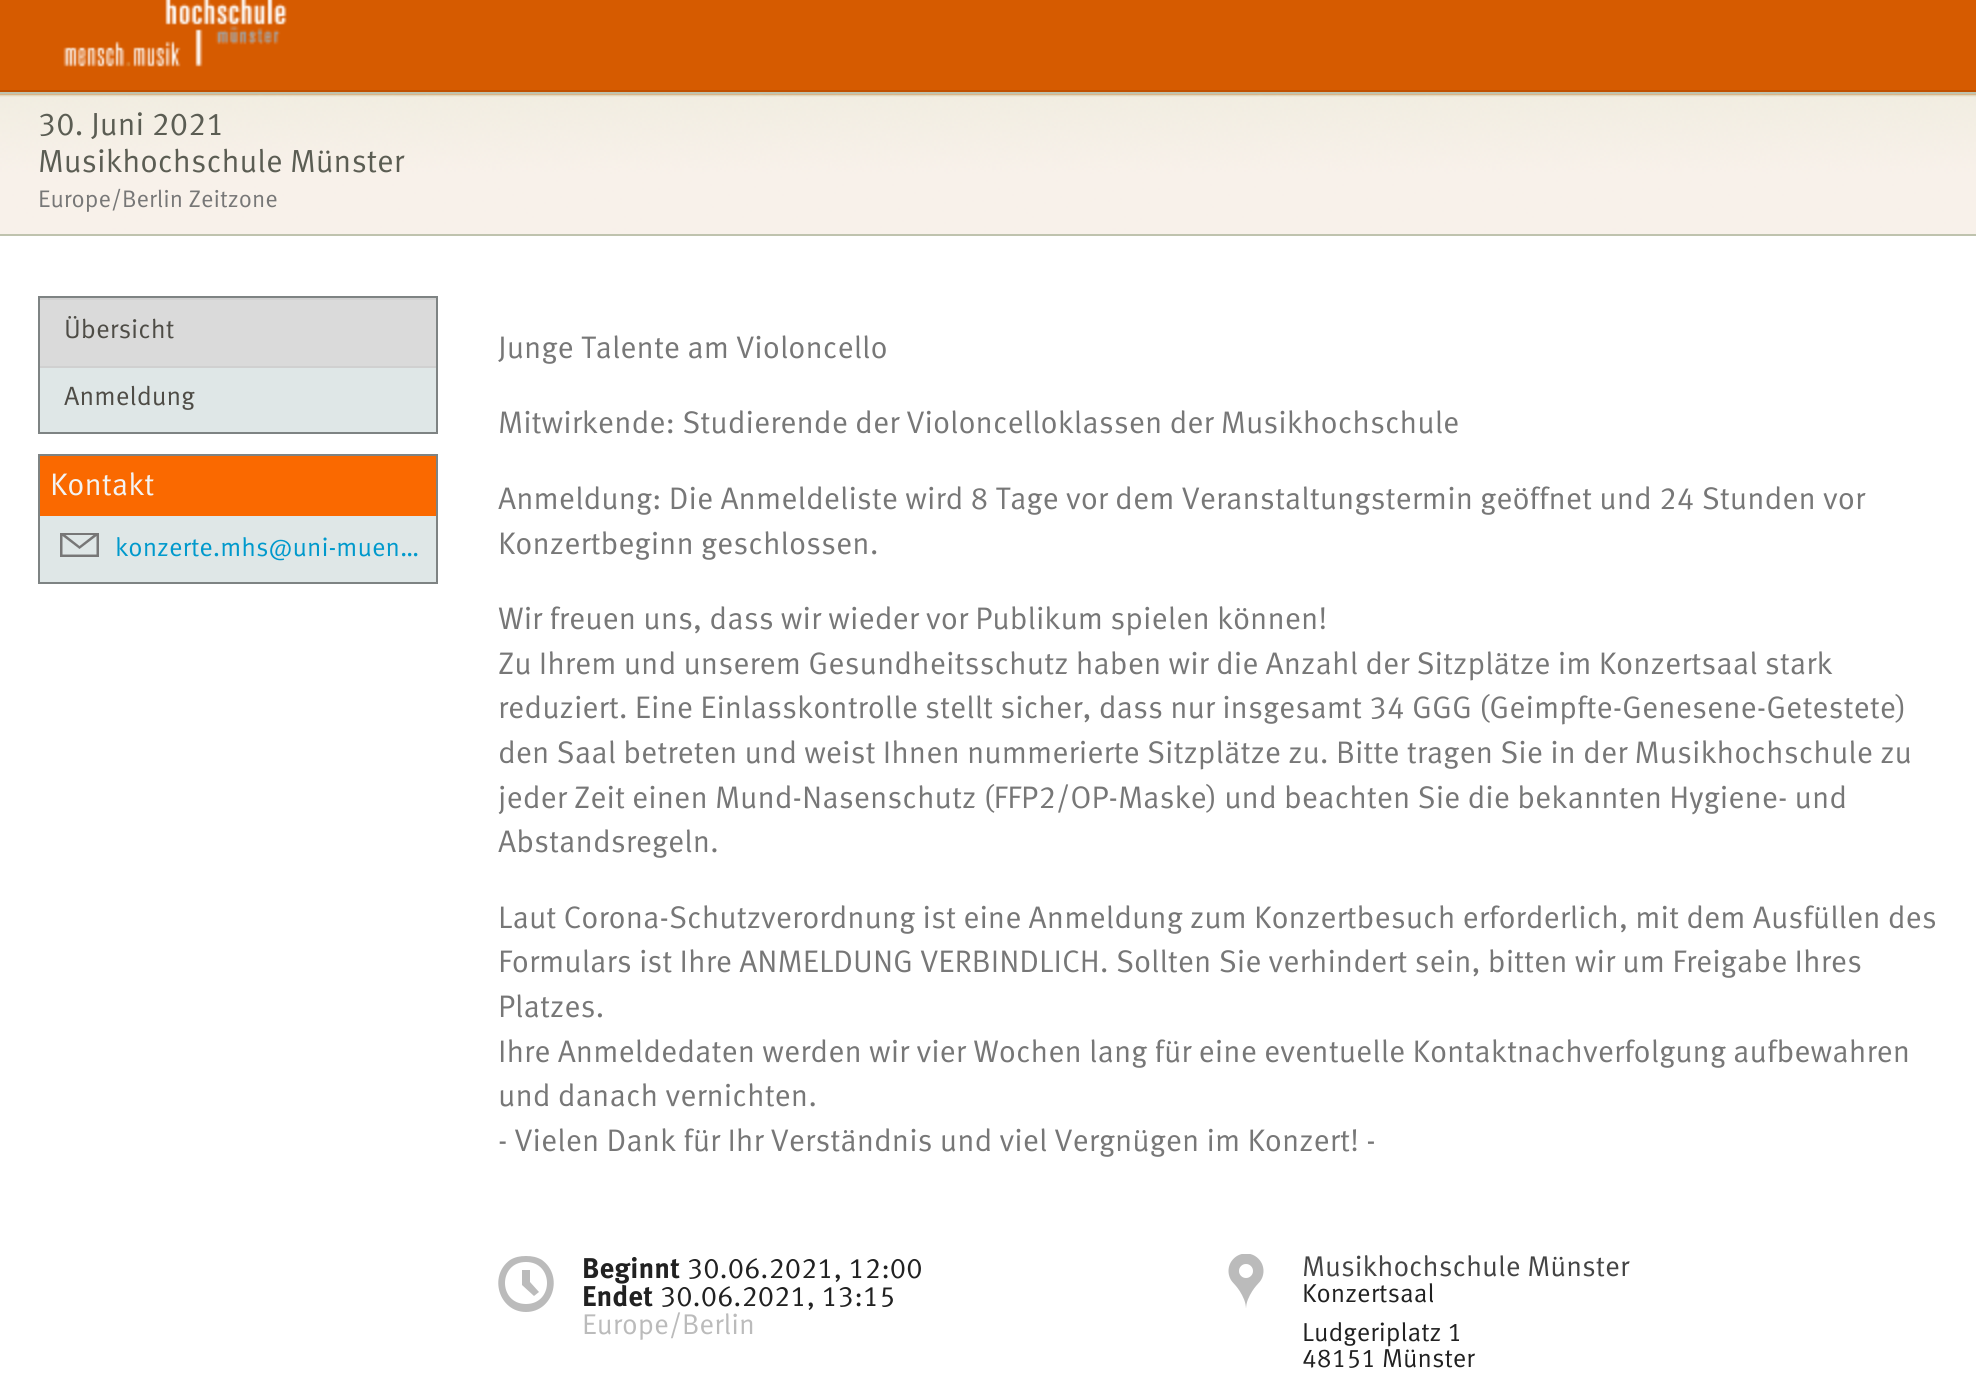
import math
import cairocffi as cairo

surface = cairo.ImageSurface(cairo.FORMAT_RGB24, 1976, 1387)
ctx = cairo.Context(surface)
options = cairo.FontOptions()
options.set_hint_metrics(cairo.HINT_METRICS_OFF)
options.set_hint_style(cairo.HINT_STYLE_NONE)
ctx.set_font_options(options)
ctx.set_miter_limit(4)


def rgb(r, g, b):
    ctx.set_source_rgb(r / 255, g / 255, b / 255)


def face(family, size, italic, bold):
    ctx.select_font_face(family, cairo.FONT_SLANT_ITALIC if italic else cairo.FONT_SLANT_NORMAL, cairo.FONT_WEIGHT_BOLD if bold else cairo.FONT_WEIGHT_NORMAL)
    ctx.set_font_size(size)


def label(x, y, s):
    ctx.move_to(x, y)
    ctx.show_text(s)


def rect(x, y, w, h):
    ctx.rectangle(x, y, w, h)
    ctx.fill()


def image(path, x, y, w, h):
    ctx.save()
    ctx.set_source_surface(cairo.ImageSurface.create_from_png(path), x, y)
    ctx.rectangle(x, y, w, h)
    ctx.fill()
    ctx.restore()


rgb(255, 255, 255)
ctx.paint()
rgb(214, 91, 0)
rect(0, 0, 1976, 90)
rgb(192, 80, 0)
rect(0, 90, 1976, 2)
image('image0.png', 63, 0, 224, 67)
image('image1.png', 0, 94, 1976, 140)
rgb(191, 195, 174)
rect(0, 92, 1976, 2)
rect(0, 234, 1976, 2)
face('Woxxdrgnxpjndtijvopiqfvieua', 32, 0, 0)
rgb(91, 93, 83)
label(38, 135, '30. Juni 2021')
label(38, 172, 'Musikhochschule Münster')
face('Woxxdrgnxpjndtijvopiqfvieua', 24, 0, 0)
rgb(119, 119, 119)
label(38, 207, 'Europe/Berlin Zeitzone')
rgb(223, 231, 231)
rect(40, 368, 396, 64)
ctx.rectangle(39, 297, 398, 136)
rgb(126, 131, 131)
ctx.stroke()
rgb(218, 218, 218)
rect(40, 300, 396, 66)
rgb(208, 208, 208)
rect(40, 298, 396, 2)
rect(40, 366, 396, 2)
face('Woxxdrgnxpjndtijvopiqfvieua', 26.5, 0, 0)
rgb(78, 76, 70)
label(64, 338, 'Übersicht')
label(64, 405, 'Anmeldung')
rgb(223, 231, 231)
rect(40, 516, 396, 66)
ctx.rectangle(39, 455, 398, 128)
rgb(126, 131, 131)
ctx.stroke()
rgb(250, 105, 0)
rect(40, 456, 396, 60)
face('Woxxdrgnxpjndtijvopiqfvieua', 31.2, 0, 0)
rgb(243, 243, 243)
label(50, 495, 'Kontakt')
rgb(119, 119, 119)
ctx.new_path()
ctx.move_to(60, 533)
ctx.line_to(60, 557)
ctx.line_to(99, 557)
ctx.line_to(99, 533)
ctx.close_path()
ctx.move_to(93.5, 535)
ctx.line_to(79.5, 546)
ctx.line_to(65.5, 535)
ctx.close_path()
ctx.move_to(62.5, 554.5)
ctx.line_to(62.5, 536)
ctx.line_to(79.5, 549)
ctx.line_to(96.5, 536)
ctx.line_to(96.5, 554.5)
ctx.close_path()
ctx.fill()
face('Woxxdrgnxpjndtijvopiqfvieua', 26, 0, 0)
rgb(0, 153, 204)
label(115, 556, 'konzerte.mhs@uni-muen…')
face('Woxxdrgnxpjndtijvopiqfvieua', 31.2, 0, 0)
rgb(119, 119, 119)
label(498, 358, 'Junge Talente am Violoncello')
label(498, 433, 'Mitwirkende: Studierende der Violoncelloklassen der Musikhochschule')
label(498, 509, 'Anmeldung: Die Anmeldeliste wird 8 Tage vor dem Veranstaltungstermin geöffnet und 24 Stunden vor')
label(498, 554, 'Konzertbeginn geschlossen.')
label(498, 629, 'Wir freuen uns, dass wir wieder vor Publikum spielen können!')
label(498, 674, 'Zu Ihrem und unserem Gesundheitsschutz haben wir die Anzahl der Sitzplätze im Konzertsaal stark')
label(498, 718, 'reduziert. Eine Einlasskontrolle stellt sicher, dass nur insgesamt 34 GGG (Geimpfte-Genesene-Getestete)')
label(498, 763, 'den Saal betreten und weist Ihnen nummerierte Sitzplätze zu. Bitte tragen Sie in der Musikhochschule zu')
label(498, 808, 'jeder Zeit einen Mund-Nasenschutz (FFP2/OP-Maske) und beachten Sie die bekannten Hygiene- und')
label(498, 852, 'Abstandsregeln.')
label(498, 928, 'Laut Corona-Schutzverordnung ist eine Anmeldung zum Konzertbesuch erforderlich, mit dem Ausfüllen des')
label(498, 972, 'Formulars ist Ihre ANMELDUNG VERBINDLICH. Sollten Sie verhindert sein, bitten wir um Freigabe Ihres')
label(498, 1017, 'Platzes.')
label(498, 1062, 'Ihre Anmeldedaten werden wir vier Wochen lang für eine eventuelle Kontaktnachverfolgung aufbewahren')
label(498, 1106, 'und danach vernichten.')
label(498, 1151, '- Vielen Dank für Ihr Verständnis und viel Vergnügen im Konzert! -')
rgb(187, 187, 187)
ctx.new_path()
ctx.move_to(534, 1296)
ctx.line_to(522, 1285)
ctx.line_to(522, 1270)
ctx.line_to(530, 1270)
ctx.line_to(530, 1282)
ctx.line_to(539, 1292)
ctx.close_path()
ctx.move_to(526, 1256)
ctx.curve_to(520, 1256, 515, 1257, 510, 1260)
ctx.curve_to(488, 1276, 499, 1312, 526, 1312)
ctx.curve_to(553, 1312, 564, 1276, 542, 1260)
ctx.curve_to(537, 1257, 532, 1256, 526, 1256)
ctx.close_path()
ctx.move_to(526, 1304)
ctx.curve_to(498, 1304, 498, 1262, 526, 1262)
ctx.curve_to(554, 1262, 554, 1304, 526, 1304)
ctx.close_path()
ctx.fill()
face('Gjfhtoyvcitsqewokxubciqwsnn', 28.6, 0, 1)
rgb(33, 33, 33)
label(582, 1278, 'Beginnt')
face('Woxxdrgnxpjndtijvopiqfvieua', 28.6, 0, 0)
label(687, 1278, '30.06.2021, 12:00')
face('Gjfhtoyvcitsqewokxubciqwsnn', 28.6, 0, 1)
label(582, 1306, 'Endet')
face('Woxxdrgnxpjndtijvopiqfvieua', 28.6, 0, 0)
label(660, 1306, '30.06.2021, 13:15')
rgb(187, 187, 187)
label(582, 1334, 'Europe/Berlin')
image('image2.png', 1228, 1254, 36, 54)
rgb(68, 68, 68)
label(1302, 1276, 'Musikhochschule Münster')
face('Woxxdrgnxpjndtijvopiqfvieua', 26, 0, 0)
rgb(33, 33, 33)
label(1302, 1302, 'Konzertsaal')
label(1302, 1341, 'Ludgeriplatz 1')
label(1302, 1367, '48151 Münster')
surface.write_to_png('render.png')
